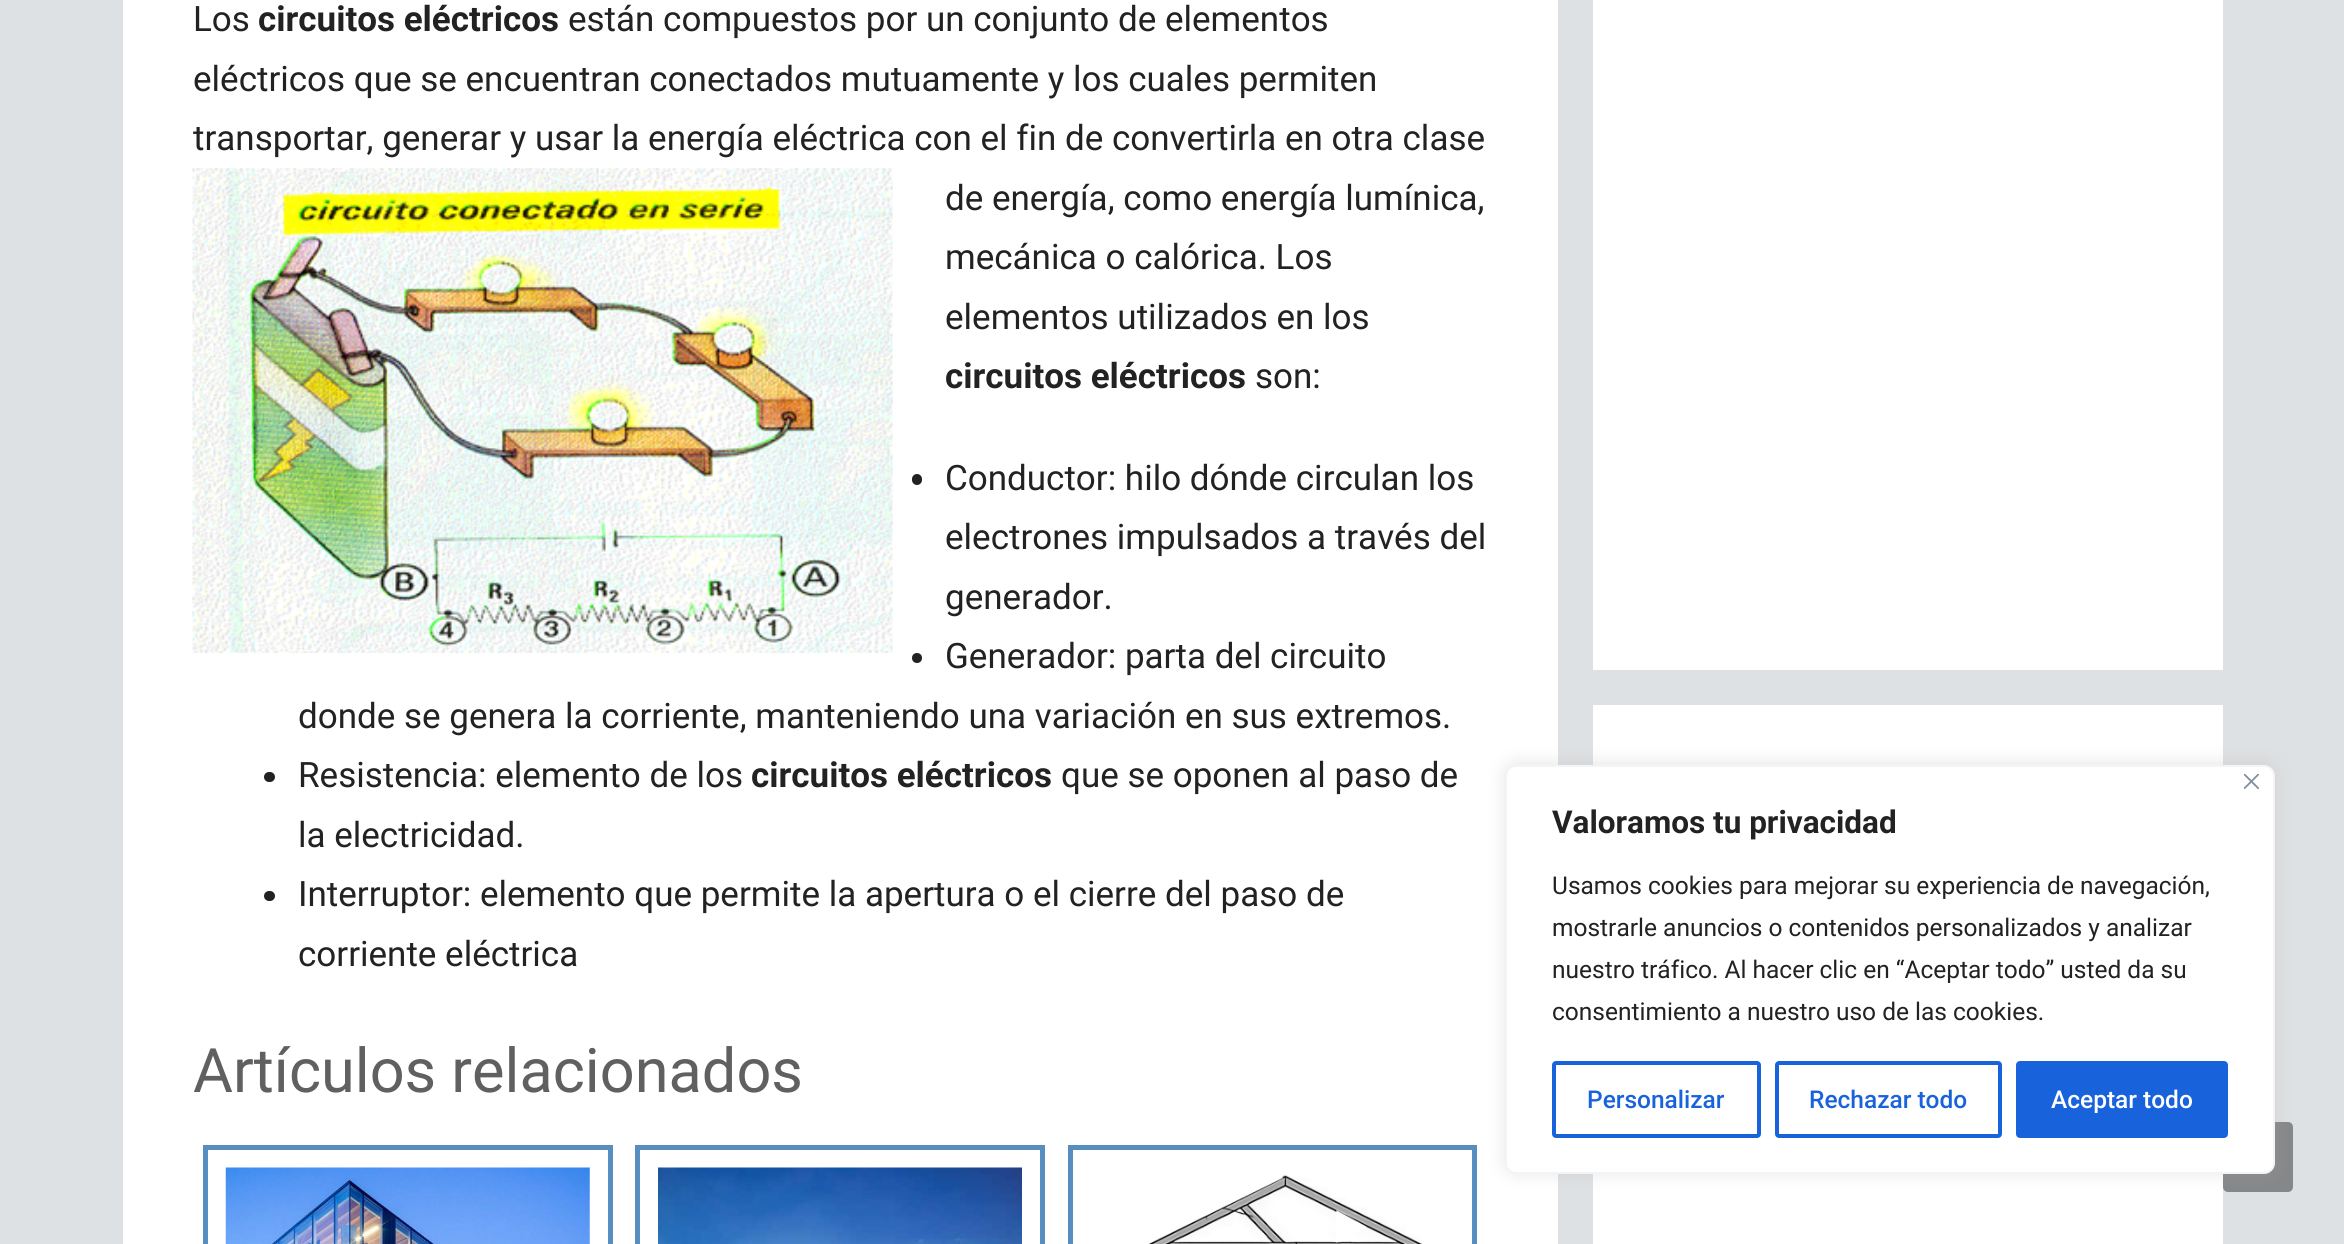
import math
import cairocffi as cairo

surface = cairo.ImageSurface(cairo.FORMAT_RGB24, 2344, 1244)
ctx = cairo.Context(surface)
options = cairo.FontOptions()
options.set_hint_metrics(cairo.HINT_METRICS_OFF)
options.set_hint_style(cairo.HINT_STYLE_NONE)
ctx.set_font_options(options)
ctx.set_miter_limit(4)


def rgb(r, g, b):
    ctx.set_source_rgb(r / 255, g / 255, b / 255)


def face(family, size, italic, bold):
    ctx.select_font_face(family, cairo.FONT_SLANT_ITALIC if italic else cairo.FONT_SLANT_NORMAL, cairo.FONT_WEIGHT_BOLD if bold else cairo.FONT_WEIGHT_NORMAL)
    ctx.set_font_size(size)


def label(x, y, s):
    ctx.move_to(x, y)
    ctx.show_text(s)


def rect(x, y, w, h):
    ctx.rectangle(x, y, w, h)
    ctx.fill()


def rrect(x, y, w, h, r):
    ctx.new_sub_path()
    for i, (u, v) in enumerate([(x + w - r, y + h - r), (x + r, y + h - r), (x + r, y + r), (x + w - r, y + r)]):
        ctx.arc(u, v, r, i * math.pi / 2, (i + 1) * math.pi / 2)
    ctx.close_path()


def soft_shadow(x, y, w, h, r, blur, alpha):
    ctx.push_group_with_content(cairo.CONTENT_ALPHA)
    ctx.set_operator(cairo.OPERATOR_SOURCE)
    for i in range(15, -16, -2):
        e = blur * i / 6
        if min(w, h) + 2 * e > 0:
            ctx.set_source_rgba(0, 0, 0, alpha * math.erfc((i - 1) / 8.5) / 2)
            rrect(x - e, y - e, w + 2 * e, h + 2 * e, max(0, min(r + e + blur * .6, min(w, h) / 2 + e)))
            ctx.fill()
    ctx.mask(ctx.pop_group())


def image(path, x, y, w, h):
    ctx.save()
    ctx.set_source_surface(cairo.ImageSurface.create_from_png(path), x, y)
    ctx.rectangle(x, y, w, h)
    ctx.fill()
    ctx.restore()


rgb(222, 225, 227)
ctx.paint()
rgb(255, 255, 255)
rect(123, 0, 1435, 1244)
face('Roboto', 35, 0, 0)
rgb(34, 34, 34)
label(193, 31, 'Los')
face('Roboto', 35, 0, 1)
label(258, 31, 'circuitos eléctricos')
face('Roboto', 35, 0, 0)
label(568, 31, 'están compuestos por un conjunto de elementos')
label(193, 91, 'eléctricos que se encuentran conectados mutuamente y los cuales permiten')
label(193, 150, 'transportar, generar y usar la energía eléctrica con el fin de convertirla en otra clase')
image('image0.png', 192, 168, 701, 485)
label(945, 210, 'de energía, como energía lumínica,')
label(945, 269, 'mecánica o calórica. Los')
label(945, 329, 'elementos utilizados en los')
face('Roboto', 35, 0, 1)
label(945, 388, 'circuitos eléctricos')
face('Roboto', 35, 0, 0)
label(1255, 388, 'son:')
rrect(912, 474, 10, 11, 5)
ctx.fill()
label(945, 490, 'Conductor: hilo dónde circulan los')
label(945, 549, 'electrones impulsados a través del')
label(945, 609, 'generador.')
ctx.new_path()
ctx.arc(917, 658, 5, 0, 2 * math.pi)
ctx.fill()
label(945, 668, 'Generador: parta del circuito')
label(298, 728, 'donde se genera la corriente, manteniendo una variación en sus extremos.')
rrect(264, 772, 11, 10, 5)
ctx.fill()
label(298, 787, 'Resistencia: elemento de los')
face('Roboto', 35, 0, 1)
label(751, 787, 'circuitos eléctricos')
face('Roboto', 35, 0, 0)
label(1061, 787, 'que se oponen al paso de')
label(298, 847, 'la electricidad.')
rrect(264, 891, 11, 10, 5)
ctx.fill()
label(298, 906, 'Interruptor: elemento que permite la apertura o el cierre del paso de')
label(298, 966, 'corriente eléctrica')
face('Roboto', 61.25, 0, 0)
rgb(96, 96, 96)
label(193, 1092, 'Artículos relacionados')
ctx.rectangle(205.5, 1147.5, 405, 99)
rgb(86, 142, 191)
ctx.set_line_width(5)
ctx.stroke()
image('image1.png', 225, 1167, 365, 77)
ctx.rectangle(637.5, 1147.5, 405, 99)
ctx.stroke()
image('image2.png', 658, 1167, 364, 77)
ctx.rectangle(1070.5, 1147.5, 404, 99)
ctx.stroke()
image('image3.png', 1148, 1174, 274, 70)
rgb(255, 255, 255)
rect(1593, 0, 630, 670)
rect(1593, 705, 630, 539)
rgb(133, 135, 136)
rrect(2223, 1122, 70, 70, 5)
ctx.fill()
rgb(172, 171, 171)
soft_shadow(1505, 763, 770, 410, 11, 9, 0.3)
rgb(255, 255, 255)
rrect(1506, 766, 768, 407, 10)
ctx.fill_preserve()
rgb(244, 244, 244)
ctx.set_line_width(2)
ctx.stroke()
image('image4.png', 2244, 774, 15, 15)
face('Roboto', 31.5, 0, 1)
rgb(34, 34, 34)
label(1552, 833, 'Valoramos tu privacidad')
face('Roboto', 24.5, 0, 0)
label(1552, 894, 'Usamos cookies para mejorar su experiencia de navegación,')
label(1552, 936, 'mostrarle anuncios o contenidos personalizados y analizar')
label(1552, 978, 'nuestro tráfico. Al hacer clic en “Aceptar todo” usted da su')
label(1552, 1020, 'consentimiento a nuestro uso de las cookies.')
rrect(1554, 1063, 205, 73, 2)
rgb(24, 99, 220)
ctx.set_line_width(4)
ctx.stroke()
face('Roboto Medium', 24.5, 0, 0)
label(1587, 1108, 'Personalizar')
rrect(1777, 1063, 223, 73, 2)
ctx.stroke()
label(1809, 1108, 'Rechazar todo')
rrect(2018, 1063, 208, 73, 2)
ctx.fill_preserve()
ctx.stroke()
rgb(255, 255, 255)
label(2051, 1108, 'Aceptar todo')
surface.write_to_png('render.png')
